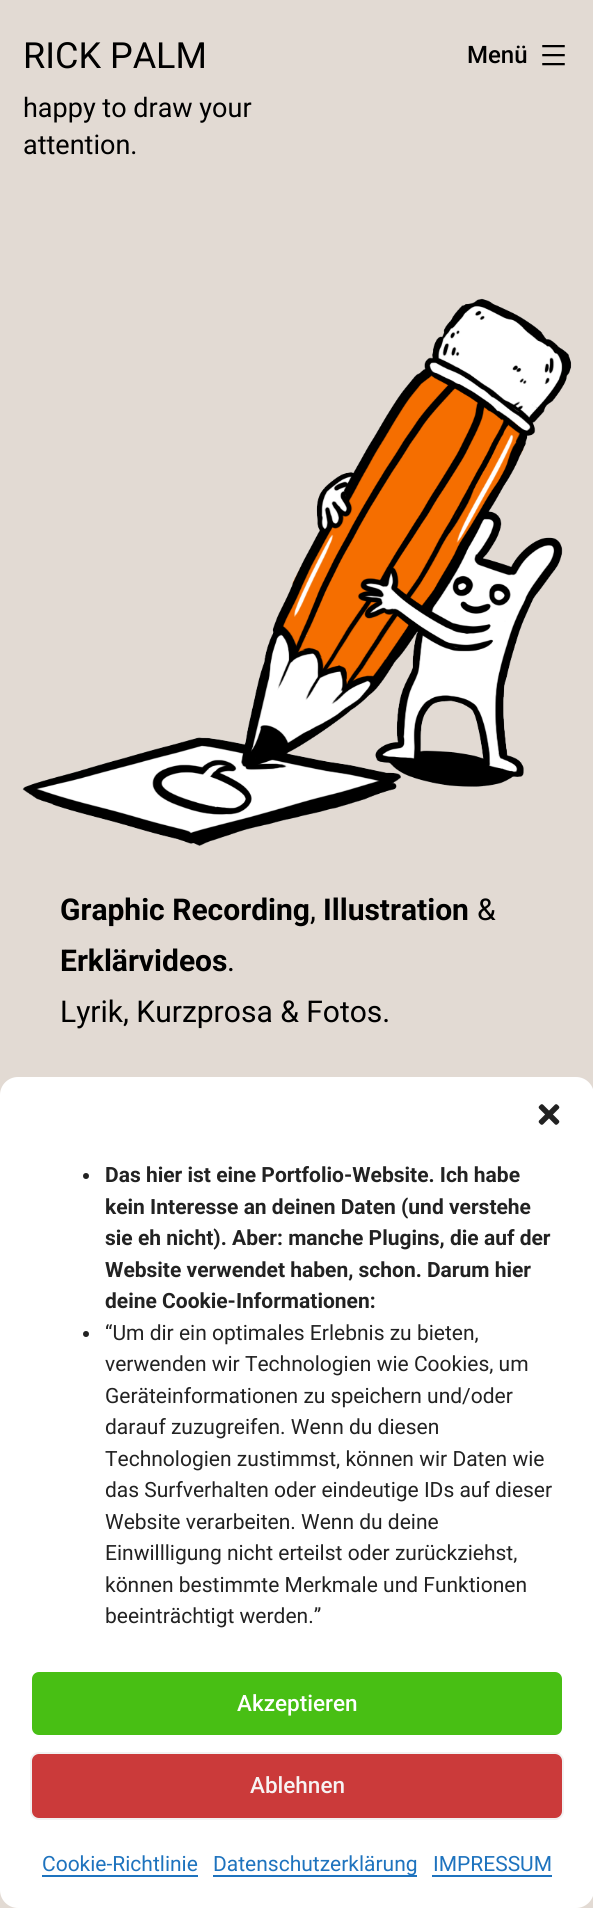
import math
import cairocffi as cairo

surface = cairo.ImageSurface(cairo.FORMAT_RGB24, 593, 1908)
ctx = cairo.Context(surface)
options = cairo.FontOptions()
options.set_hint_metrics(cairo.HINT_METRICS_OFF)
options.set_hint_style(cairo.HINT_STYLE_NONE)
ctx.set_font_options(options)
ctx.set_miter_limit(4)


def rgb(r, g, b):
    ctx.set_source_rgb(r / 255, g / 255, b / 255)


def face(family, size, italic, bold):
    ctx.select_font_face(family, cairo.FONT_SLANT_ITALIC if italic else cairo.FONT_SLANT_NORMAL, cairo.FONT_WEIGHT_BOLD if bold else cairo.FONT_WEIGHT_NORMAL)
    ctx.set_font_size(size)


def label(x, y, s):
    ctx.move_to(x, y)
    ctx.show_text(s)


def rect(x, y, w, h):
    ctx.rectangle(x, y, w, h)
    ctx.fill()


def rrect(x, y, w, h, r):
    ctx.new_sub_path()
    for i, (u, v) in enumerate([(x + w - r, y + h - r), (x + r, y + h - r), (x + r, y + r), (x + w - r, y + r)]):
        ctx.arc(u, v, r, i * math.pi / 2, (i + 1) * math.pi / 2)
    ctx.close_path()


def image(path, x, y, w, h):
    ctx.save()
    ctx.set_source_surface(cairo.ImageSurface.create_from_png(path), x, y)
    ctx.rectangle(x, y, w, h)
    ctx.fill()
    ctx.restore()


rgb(226, 218, 211)
ctx.paint()
face('Roboto', 36, 0, 0)
rgb(0, 0, 0)
label(23, 68, 'RICK PALM')
face('Roboto', 27, 0, 0)
label(23, 117, 'happy to draw your')
label(23, 154, 'attention.')
face('Roboto Medium', 24, 0, 0)
label(467, 63, 'Menü')
image('image0.png', 542, 45, 23, 21)
image('image1.png', 22, 298, 550, 548)
face('Roboto', 30, 0, 1)
label(60, 920, 'Graphic Recording')
face('Roboto', 30, 0, 0)
label(310, 920, ',')
face('Roboto', 30, 0, 1)
label(323, 920, 'Illustration')
face('Roboto', 30, 0, 0)
label(477, 920, '&')
face('Roboto', 30, 0, 1)
label(60, 971, 'Erklärvideos')
face('Roboto', 30, 0, 0)
label(227, 971, '.')
label(60, 1022, 'Lyrik, Kurzprosa & Fotos.')
rgb(255, 255, 255)
rrect(0, 1077, 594, 831, 18)
ctx.fill()
image('image2.png', 538, 1104, 22, 21)
rgb(34, 34, 34)
ctx.arc(86, 1176, 3, 0, 2 * math.pi)
ctx.fill()
face('Roboto', 21, 0, 1)
label(105, 1182, 'Das hier ist eine Portfolio-Website. Ich habe')
label(105, 1214, 'kein Interesse an deinen Daten (und verstehe')
label(105, 1245, 'sie eh nicht). Aber: manche Plugins, die auf der')
label(105, 1277, 'Website verwendet haben, schon. Darum hier')
label(105, 1308, 'deine Cookie-Informationen:')
ctx.new_path()
ctx.arc(86, 1334, 3, 0, 2 * math.pi)
ctx.fill()
face('Roboto', 21, 0, 0)
label(105, 1340, '“Um dir ein optimales Erlebnis zu bieten,')
label(105, 1371, 'verwenden wir Technologien wie Cookies, um')
label(105, 1403, 'Geräteinformationen zu speichern und/oder')
label(105, 1434, 'darauf zuzugreifen. Wenn du diesen')
label(105, 1466, 'Technologien zustimmst, können wir Daten wie')
label(105, 1497, 'das Surfverhalten oder eindeutige IDs auf dieser')
label(105, 1529, 'Website verarbeiten. Wenn du deine')
label(105, 1560, 'Einwillligung nicht erteilst oder zurückziehst,')
label(105, 1592, 'können bestimmte Merkmale und Funktionen')
label(105, 1623, 'beeinträchtigt werden.”')
rgb(72, 191, 20)
rrect(31, 1671, 532, 65, 8)
ctx.fill_preserve()
rgb(255, 255, 255)
ctx.stroke()
face('Roboto Medium', 22.5, 0, 0)
label(237, 1711, 'Akzeptieren')
rgb(203, 58, 58)
rrect(31, 1753, 532, 66, 8)
ctx.fill_preserve()
rgb(242, 242, 242)
ctx.stroke()
rgb(247, 243, 243)
label(250, 1793, 'Ablehnen')
face('Roboto', 21, 0, 0)
rgb(30, 115, 190)
label(42, 1871, 'Cookie-Richtlinie')
rect(42, 1875, 156, 2)
rect(213, 1875, 204, 2)
label(213, 1871, 'Datenschutzerklärung')
label(433, 1871, 'IMPRESSUM')
rect(432, 1875, 120, 2)
surface.write_to_png('render.png')
